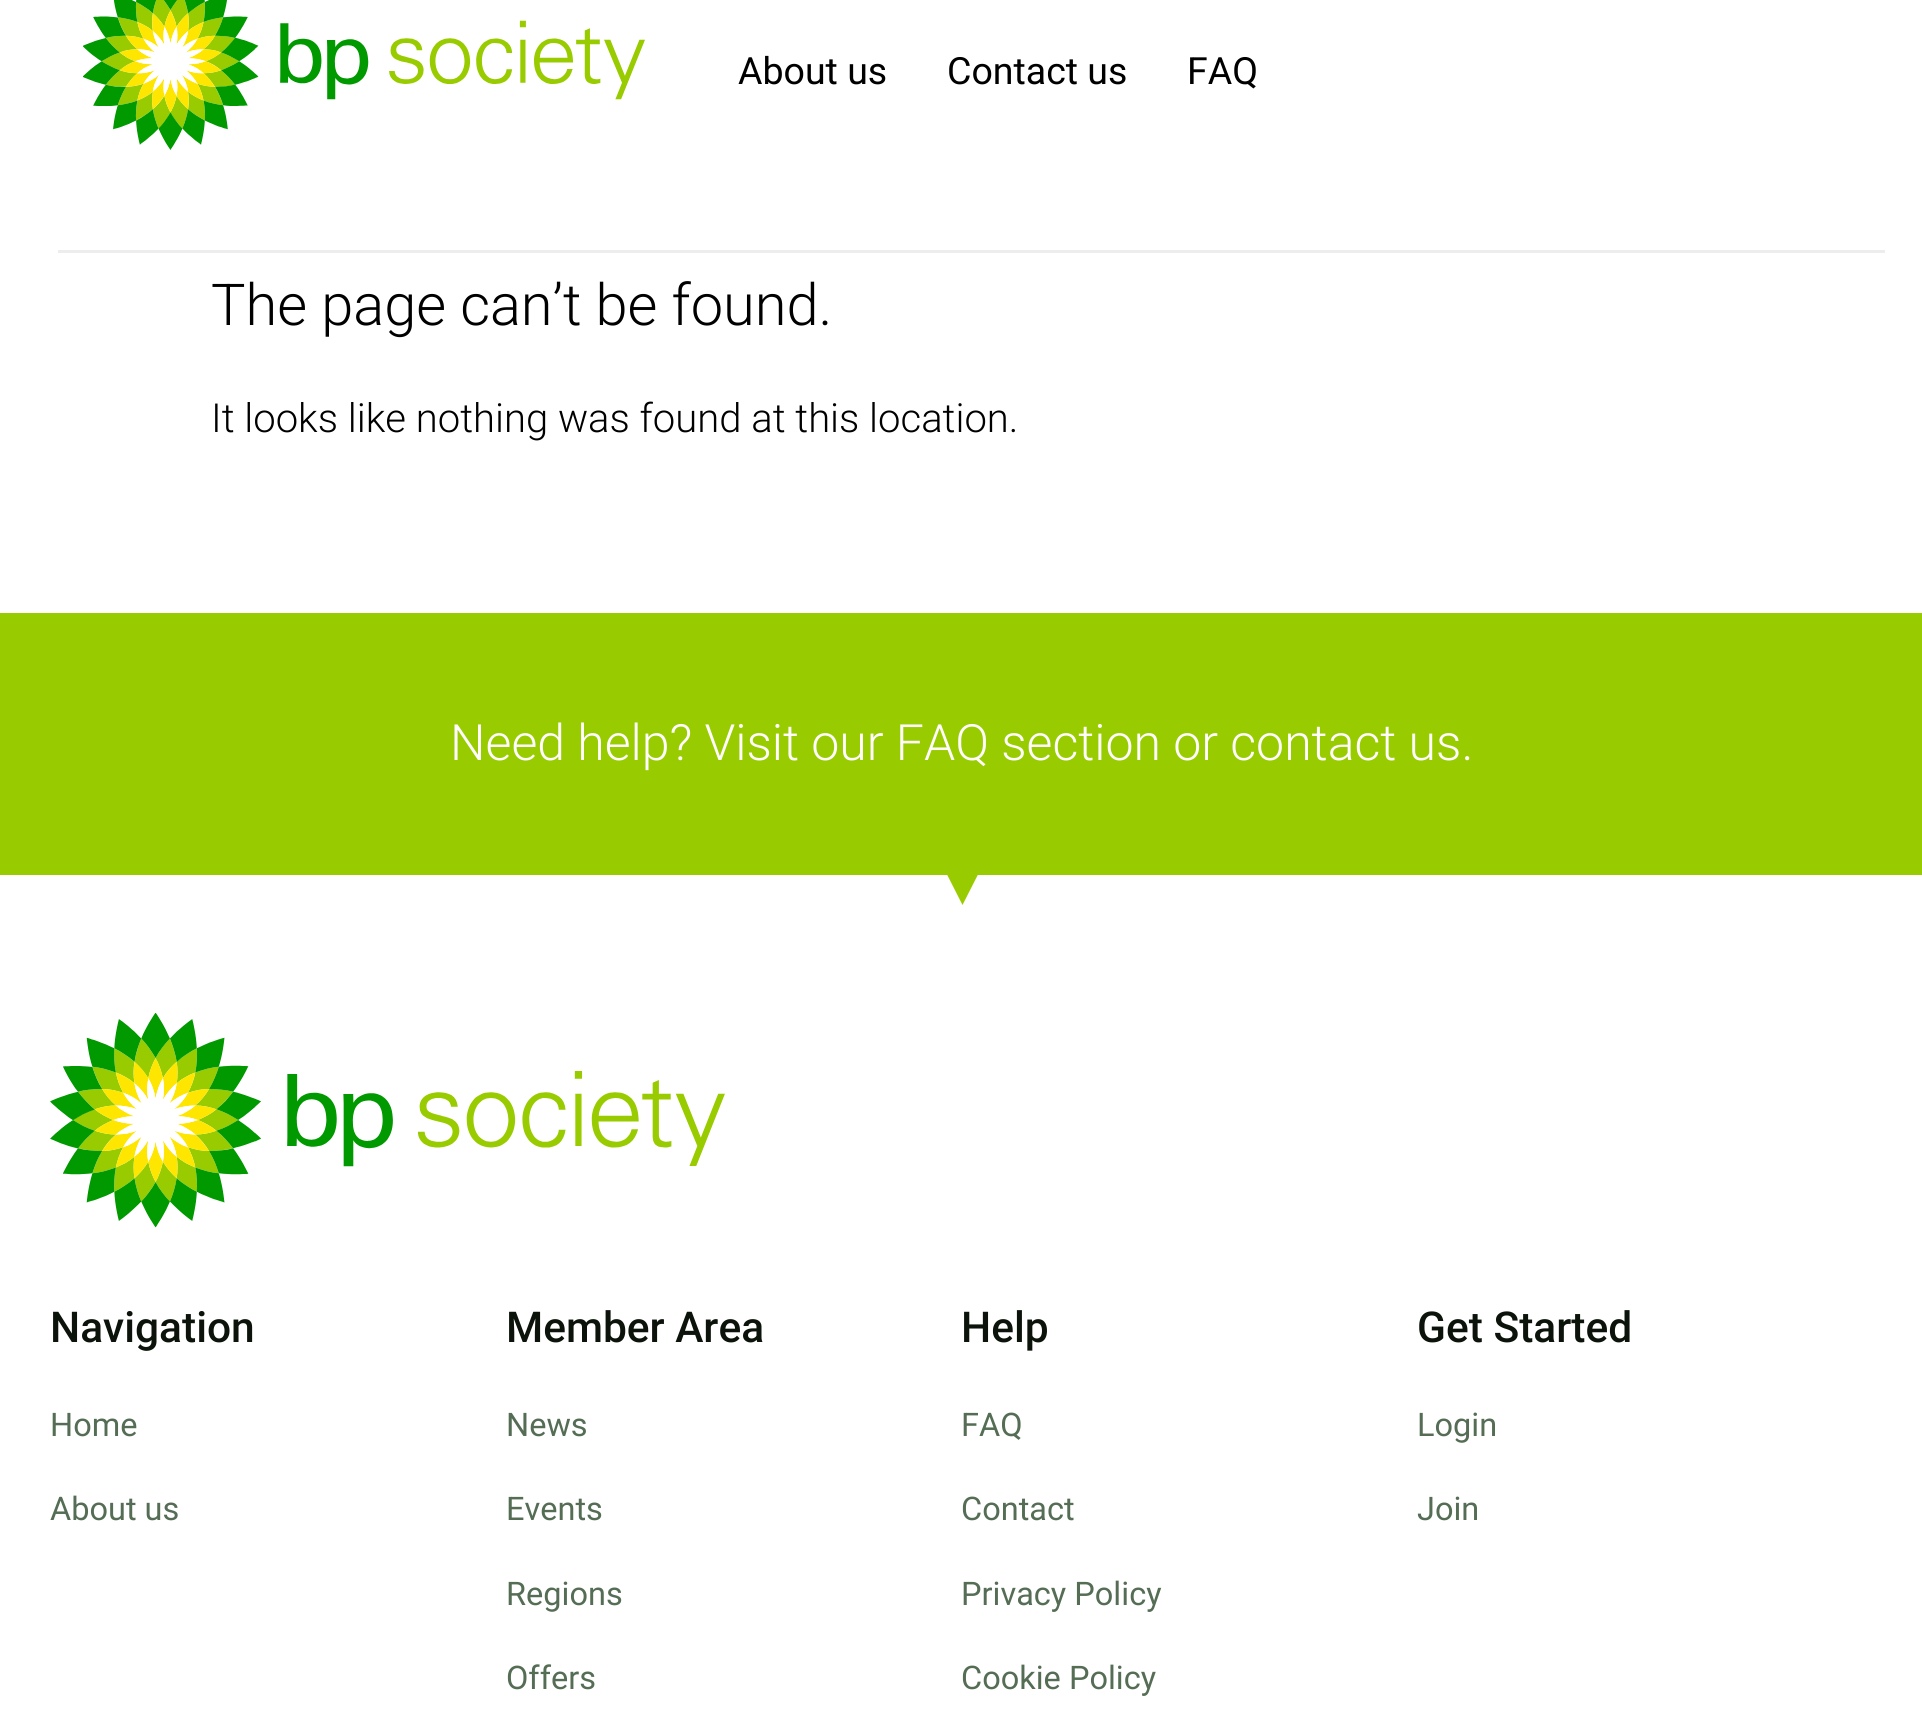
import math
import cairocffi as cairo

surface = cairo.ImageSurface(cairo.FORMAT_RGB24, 1922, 1725)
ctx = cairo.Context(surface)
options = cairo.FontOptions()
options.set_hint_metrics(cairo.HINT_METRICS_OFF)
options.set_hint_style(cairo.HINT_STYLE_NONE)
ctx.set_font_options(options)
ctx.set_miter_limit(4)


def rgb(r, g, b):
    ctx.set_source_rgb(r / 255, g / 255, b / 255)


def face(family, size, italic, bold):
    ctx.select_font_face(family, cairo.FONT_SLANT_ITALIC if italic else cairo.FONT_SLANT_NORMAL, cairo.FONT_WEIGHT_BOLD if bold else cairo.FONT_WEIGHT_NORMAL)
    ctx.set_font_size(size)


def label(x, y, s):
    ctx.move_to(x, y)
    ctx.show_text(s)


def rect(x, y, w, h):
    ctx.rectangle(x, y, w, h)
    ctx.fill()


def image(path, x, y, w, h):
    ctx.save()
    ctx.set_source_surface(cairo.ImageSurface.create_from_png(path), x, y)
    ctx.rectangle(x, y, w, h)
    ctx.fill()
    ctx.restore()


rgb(255, 255, 255)
ctx.paint()
rgb(237, 237, 237)
rect(58, 250, 1827, 3)
image('image0.png', 83, 0, 562, 150)
face('Roboto', 37.5, 0, 0)
rgb(0, 0, 0)
label(738, 84, 'About us')
label(947, 84, 'Contact us')
label(1187, 84, 'FAQ')
face('Roboto Light', 57.75, 0, 0)
label(211, 325, 'The page can’t be found.')
face('Roboto Light', 40, 0, 0)
label(211, 432, 'It looks like nothing was found at this location.')
rgb(153, 204, 0)
rect(0, 613, 1922, 262)
face('Roboto Light', 50, 0, 0)
rgb(255, 255, 255)
label(450, 760, 'Need help? Visit our FAQ section or contact us.')
ctx.save()
ctx.rectangle(385, 873, 1155, 32)
ctx.clip()
rgb(153, 204, 0)
ctx.new_path()
ctx.move_to(962.5, 905)
ctx.line_to(946, 872.5)
ctx.line_to(979, 872.5)
ctx.close_path()
ctx.fill()
ctx.restore()
image('image1.png', 50, 1013, 675, 215)
face('Roboto Medium', 42.5, 0, 0)
rgb(11, 19, 11)
label(50, 1342, 'Navigation')
face('Roboto', 32.5, 0, 0)
rgb(84, 109, 84)
label(50, 1436, 'Home')
label(50, 1520, 'About us')
face('Roboto Medium', 42.5, 0, 0)
rgb(11, 19, 11)
label(506, 1342, 'Member Area')
face('Roboto', 32.5, 0, 0)
rgb(84, 109, 84)
label(506, 1436, 'News')
label(506, 1520, 'Events')
label(506, 1605, 'Regions')
label(506, 1689, 'Offers')
face('Roboto Medium', 42.5, 0, 0)
rgb(11, 19, 11)
label(961, 1342, 'Help')
face('Roboto', 32.5, 0, 0)
rgb(84, 109, 84)
label(961, 1436, 'FAQ')
label(961, 1520, 'Contact')
label(961, 1605, 'Privacy Policy')
label(961, 1689, 'Cookie Policy')
face('Roboto Medium', 42.5, 0, 0)
rgb(11, 19, 11)
label(1417, 1342, 'Get Started')
face('Roboto', 32.5, 0, 0)
rgb(84, 109, 84)
label(1417, 1436, 'Login')
label(1417, 1520, 'Join')
surface.write_to_png('render.png')
